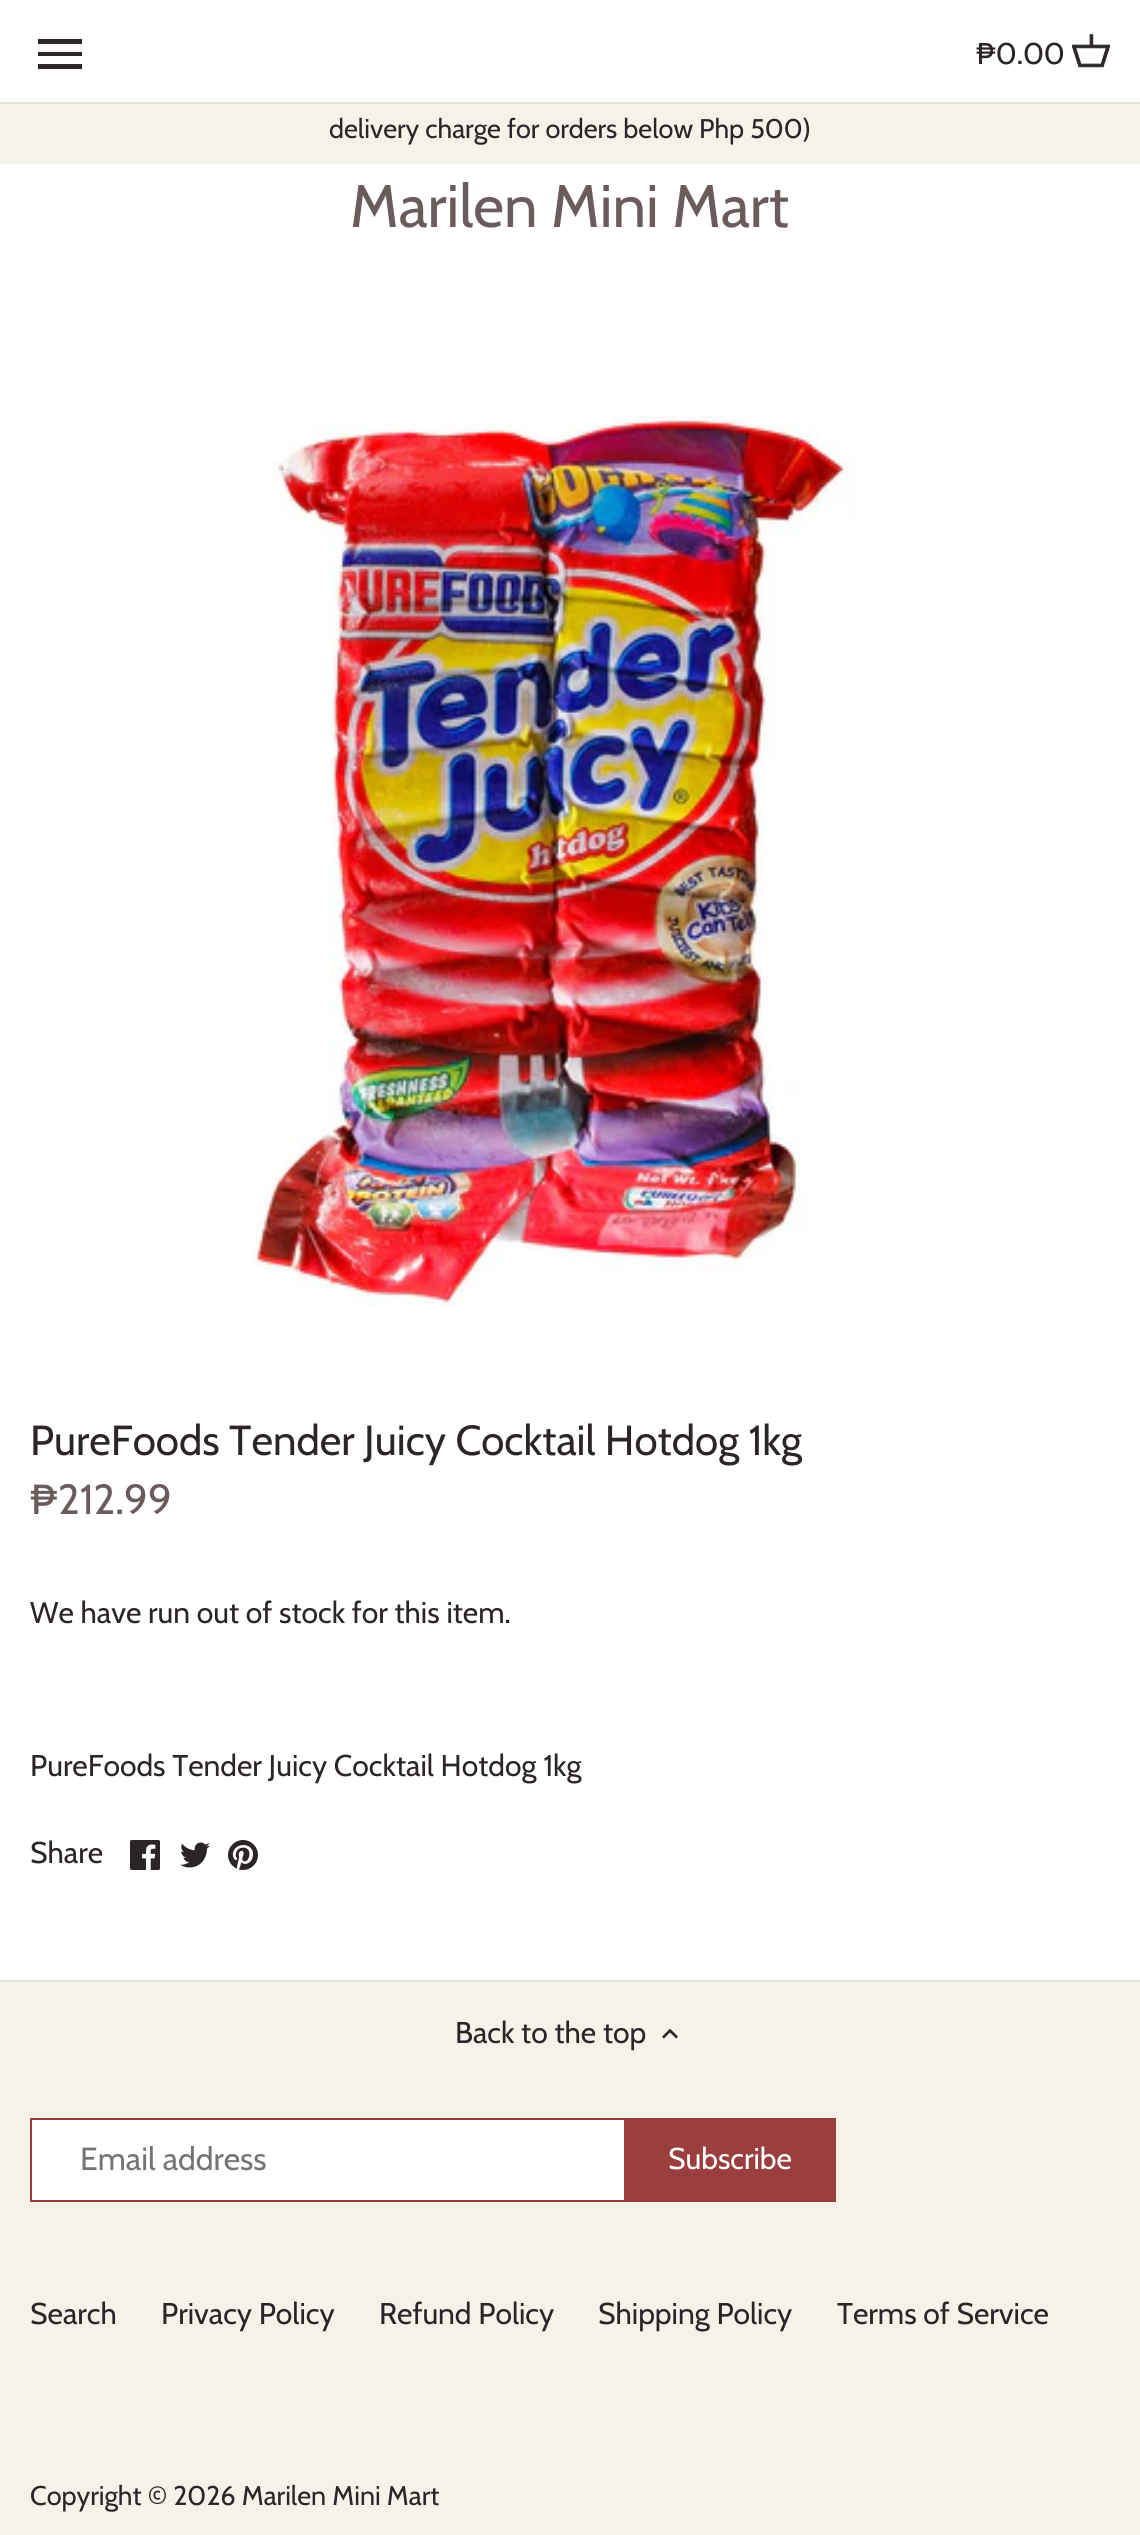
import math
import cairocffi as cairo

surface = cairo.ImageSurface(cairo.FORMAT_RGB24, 1140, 2535)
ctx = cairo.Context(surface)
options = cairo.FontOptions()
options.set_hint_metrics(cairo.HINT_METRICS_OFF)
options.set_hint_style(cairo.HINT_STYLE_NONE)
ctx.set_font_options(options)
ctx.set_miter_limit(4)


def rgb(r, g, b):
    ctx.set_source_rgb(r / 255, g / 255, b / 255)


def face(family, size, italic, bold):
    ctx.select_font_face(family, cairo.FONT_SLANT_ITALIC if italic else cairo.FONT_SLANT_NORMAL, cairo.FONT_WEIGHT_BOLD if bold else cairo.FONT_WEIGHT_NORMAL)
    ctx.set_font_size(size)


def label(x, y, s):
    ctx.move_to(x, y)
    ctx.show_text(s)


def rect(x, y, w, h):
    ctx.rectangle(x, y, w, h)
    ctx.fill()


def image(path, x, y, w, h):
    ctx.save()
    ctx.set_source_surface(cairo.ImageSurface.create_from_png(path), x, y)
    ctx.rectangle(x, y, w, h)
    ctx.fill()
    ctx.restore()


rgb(244, 242, 233)
ctx.paint()
rgb(255, 255, 255)
rect(0, 164, 1140, 1816)
rect(0, 0, 1140, 102)
rgb(229, 226, 212)
rect(0, 102, 1140, 2)
rgb(44, 37, 40)
ctx.new_path()
ctx.move_to(38, 69)
ctx.line_to(82, 69)
ctx.line_to(82, 64)
ctx.line_to(38, 64)
ctx.close_path()
ctx.move_to(38, 56)
ctx.line_to(82, 56)
ctx.line_to(82, 52)
ctx.line_to(38, 52)
ctx.close_path()
ctx.move_to(38, 39)
ctx.line_to(38, 44)
ctx.line_to(82, 44)
ctx.line_to(82, 39)
ctx.close_path()
ctx.fill()
face('Cabin', 30, 0, 0)
label(976, 64, '₱0.00')
image('image0.png', 1072, 34, 38, 34)
face('Cabin', 60, 0, 0)
rgb(106, 91, 92)
label(350, 227, 'Marilen Mini Mart')
face('Cabin', 27, 0, 0)
rgb(44, 37, 40)
label(329, 138, 'delivery charge for orders below Php 500)')
image('image1.png', 253, 415, 604, 892)
face('Cabin', 42, 0, 0)
label(30, 1455, 'PureFoods Tender Juicy Cocktail Hotdog 1kg')
rgb(106, 91, 92)
label(30, 1514, '₱212.99')
face('Cabin', 30, 0, 0)
rgb(44, 37, 40)
label(30, 1623, 'We have run out of stock for this item.')
label(30, 1776, 'PureFoods Tender Juicy Cocktail Hotdog 1kg')
label(30, 1863, 'Share')
image('image2.png', 130, 1840, 30, 30)
image('image3.png', 180, 1842, 30, 26)
image('image4.png', 228, 1840, 30, 30)
rgb(229, 226, 212)
rect(0, 1980, 1140, 2)
rgb(44, 37, 40)
label(455, 2043, 'Back to the top')
image('image5.png', 662, 2028, 16, 11)
rgb(255, 255, 255)
rect(32, 2120, 592, 80)
ctx.rectangle(31, 2119, 802, 82)
rgb(155, 62, 62)
ctx.stroke()
face('Cabin', 32, 0, 0)
rgb(117, 117, 117)
label(80, 2170, 'Email address')
rgb(155, 62, 62)
rect(624, 2118, 212, 84)
face('Cabin', 30, 0, 0)
rgb(255, 255, 255)
label(668, 2169, 'Subscribe')
rgb(44, 37, 40)
label(30, 2324, 'Search')
label(161, 2324, 'Privacy Policy')
label(379, 2324, 'Refund Policy')
label(598, 2324, 'Shipping Policy')
label(837, 2324, 'Terms of Service')
face('Cabin', 27, 0, 0)
label(30, 2505, 'Copyright © 2026 Marilen Mini Mart')
surface.write_to_png('render.png')
